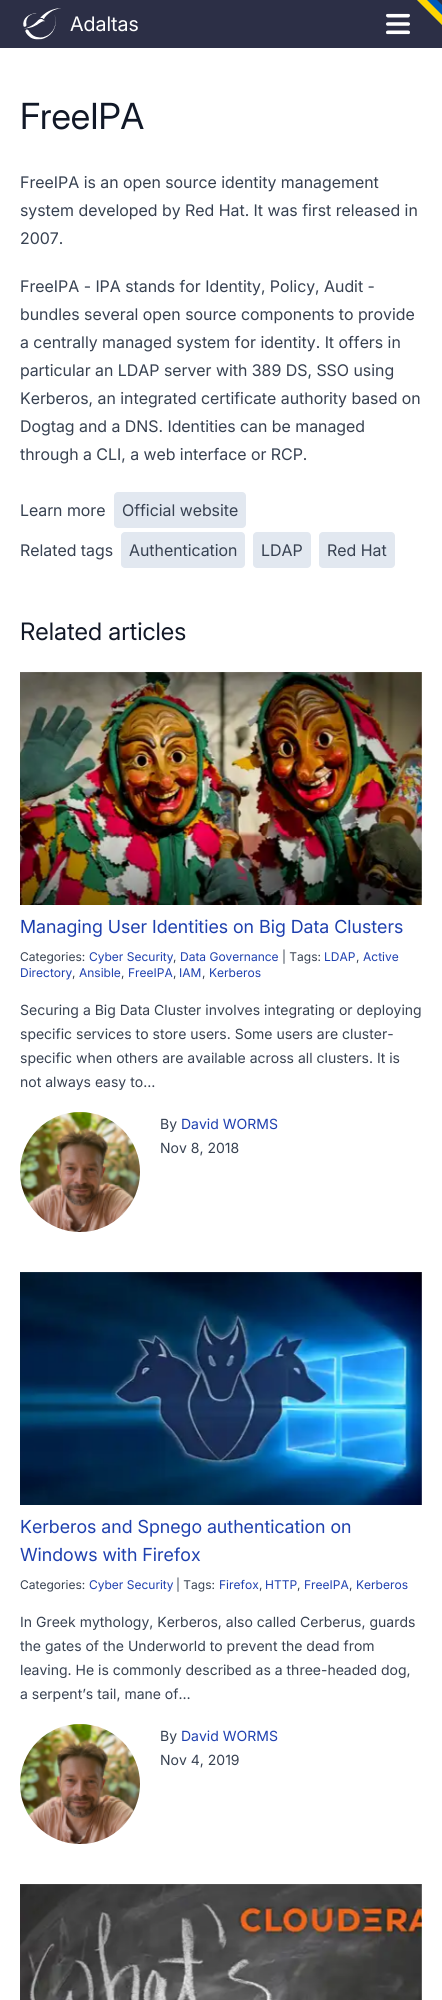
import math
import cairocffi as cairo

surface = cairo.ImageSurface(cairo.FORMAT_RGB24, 442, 2000)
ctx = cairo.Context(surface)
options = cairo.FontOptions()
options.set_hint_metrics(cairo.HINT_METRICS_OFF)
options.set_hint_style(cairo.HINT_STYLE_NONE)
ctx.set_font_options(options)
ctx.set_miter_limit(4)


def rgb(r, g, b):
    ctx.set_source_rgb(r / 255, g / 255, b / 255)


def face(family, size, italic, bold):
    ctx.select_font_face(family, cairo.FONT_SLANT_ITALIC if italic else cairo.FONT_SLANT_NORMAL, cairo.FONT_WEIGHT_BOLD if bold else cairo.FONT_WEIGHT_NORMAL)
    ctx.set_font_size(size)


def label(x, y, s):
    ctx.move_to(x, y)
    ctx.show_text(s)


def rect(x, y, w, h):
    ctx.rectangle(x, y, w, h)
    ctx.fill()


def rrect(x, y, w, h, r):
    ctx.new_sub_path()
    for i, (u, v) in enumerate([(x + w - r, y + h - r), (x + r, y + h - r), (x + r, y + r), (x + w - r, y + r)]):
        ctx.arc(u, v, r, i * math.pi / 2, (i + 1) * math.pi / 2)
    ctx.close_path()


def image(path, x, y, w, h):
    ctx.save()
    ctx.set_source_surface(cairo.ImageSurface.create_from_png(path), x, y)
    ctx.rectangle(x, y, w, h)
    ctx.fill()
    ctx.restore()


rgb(255, 255, 255)
ctx.paint()
rgb(44, 47, 70)
rect(0, 0, 442, 48)
image('image0.png', 23, 8, 38, 32)
face('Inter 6', 20, 0, 0)
rgb(255, 255, 255)
label(70, 31, 'Adaltas')
image('image1.png', 386, 13, 24, 22)
rgb(0, 91, 187)
ctx.new_path()
ctx.move_to(356, -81)
ctx.line_to(346, -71)
ctx.line_to(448, 31)
ctx.line_to(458, 21)
ctx.close_path()
ctx.fill()
rgb(255, 213, 0)
ctx.new_path()
ctx.move_to(346, -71)
ctx.line_to(351, -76)
ctx.line_to(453, 26)
ctx.line_to(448, 31)
ctx.close_path()
ctx.fill()
face('Inter', 36, 0, 0)
rgb(17, 24, 39)
label(20, 129, 'FreeIPA')
face('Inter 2', 16, 0, 0)
rgb(55, 65, 81)
label(20, 188, 'FreeIPA is an open source identity management')
label(20, 216, 'system developed by Red Hat. It was first released in')
label(20, 244, '2007.')
label(20, 292, 'FreeIPA - IPA stands for Identity, Policy, Audit -')
label(20, 320, 'bundles several open source components to provide')
label(20, 348, 'a centrally managed system for identity. It offers in')
label(20, 376, 'particular an LDAP server with 389 DS, SSO using')
label(20, 404, 'Kerberos, an integrated certificate authority based on')
label(20, 432, 'Dogtag and a DNS. Identities can be managed')
label(20, 460, 'through a CLI, a web interface or RCP.')
label(20, 516, 'Learn more')
rgb(226, 232, 240)
rrect(114, 492, 132, 36, 4)
ctx.fill()
rgb(55, 65, 81)
label(122, 516, 'Official website')
label(20, 556, 'Related tags')
rgb(226, 232, 240)
rrect(121, 532, 124, 36, 4)
ctx.fill()
rgb(55, 65, 81)
label(129, 556, 'Authentication')
rgb(226, 232, 240)
rrect(253, 532, 58, 36, 4)
ctx.fill()
rgb(55, 65, 81)
label(261, 556, 'LDAP')
rgb(226, 232, 240)
rrect(319, 532, 76, 36, 4)
ctx.fill()
rgb(55, 65, 81)
label(327, 556, 'Red Hat')
face('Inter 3', 24, 0, 0)
rgb(17, 24, 39)
label(20, 640, 'Related articles')
image('image2.png', 20, 672, 402, 233)
face('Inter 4', 18, 0, 0)
rgb(30, 64, 175)
label(20, 933, 'Managing User Identities on Big Data Clusters')
face('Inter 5', 12, 0, 0)
rgb(55, 65, 81)
label(20, 961, 'Categories:')
rgb(30, 64, 175)
label(89, 961, 'Cyber Security')
rgb(55, 65, 81)
label(173, 961, ',')
rgb(30, 64, 175)
label(180, 961, 'Data Governance')
rgb(55, 65, 81)
label(282, 961, '| Tags:')
rgb(30, 64, 175)
label(324, 961, 'LDAP')
rgb(55, 65, 81)
label(356, 961, ',')
rgb(30, 64, 175)
label(363, 961, 'Active')
label(20, 977, 'Directory')
rgb(55, 65, 81)
label(72, 977, ',')
rgb(30, 64, 175)
label(79, 977, 'Ansible')
rgb(55, 65, 81)
label(121, 977, ',')
rgb(30, 64, 175)
label(128, 977, 'FreeIPA')
rgb(55, 65, 81)
label(173, 977, ',')
rgb(30, 64, 175)
label(179, 977, 'IAM')
rgb(55, 65, 81)
label(202, 977, ',')
rgb(30, 64, 175)
label(209, 977, 'Kerberos')
face('Inter 5', 14, 0, 0)
rgb(55, 65, 81)
label(20, 1015, 'Securing a Big Data Cluster involves integrating or deploying')
label(20, 1039, 'specific services to store users. Some users are cluster-')
label(20, 1063, 'specific when others are available across all clusters. It is')
label(20, 1087, 'not always easy to…')
image('image3.png', 20, 1112, 120, 120)
label(160, 1129, 'By')
rgb(30, 64, 175)
label(181, 1129, 'David WORMS')
rgb(55, 65, 81)
label(160, 1153, 'Nov 8, 2018')
image('image4.png', 20, 1272, 402, 233)
face('Inter 4', 18, 0, 0)
rgb(30, 64, 175)
label(20, 1533, 'Kerberos and Spnego authentication on')
label(20, 1561, 'Windows with Firefox')
face('Inter 5', 12, 0, 0)
rgb(55, 65, 81)
label(20, 1589, 'Categories:')
rgb(30, 64, 175)
label(89, 1589, 'Cyber Security')
rgb(55, 65, 81)
label(176, 1589, '| Tags:')
rgb(30, 64, 175)
label(219, 1589, 'Firefox')
rgb(55, 65, 81)
label(259, 1589, ',')
rgb(30, 64, 175)
label(265, 1589, 'HTTP')
rgb(55, 65, 81)
label(297, 1589, ',')
rgb(30, 64, 175)
label(304, 1589, 'FreeIPA')
rgb(55, 65, 81)
label(349, 1589, ',')
rgb(30, 64, 175)
label(356, 1589, 'Kerberos')
face('Inter 5', 14, 0, 0)
rgb(55, 65, 81)
label(20, 1627, 'In Greek mythology, Kerberos, also called Cerberus, guards')
label(20, 1651, 'the gates of the Underworld to prevent the dead from')
label(20, 1675, 'leaving. He is commonly described as a three-headed dog,')
label(20, 1699, 'a serpent’s tail, mane of…')
image('image3.png', 20, 1724, 120, 120)
label(160, 1741, 'By')
rgb(30, 64, 175)
label(181, 1741, 'David WORMS')
rgb(55, 65, 81)
label(160, 1765, 'Nov 4, 2019')
image('image5.png', 20, 1884, 402, 116)
surface.write_to_png('render.png')
